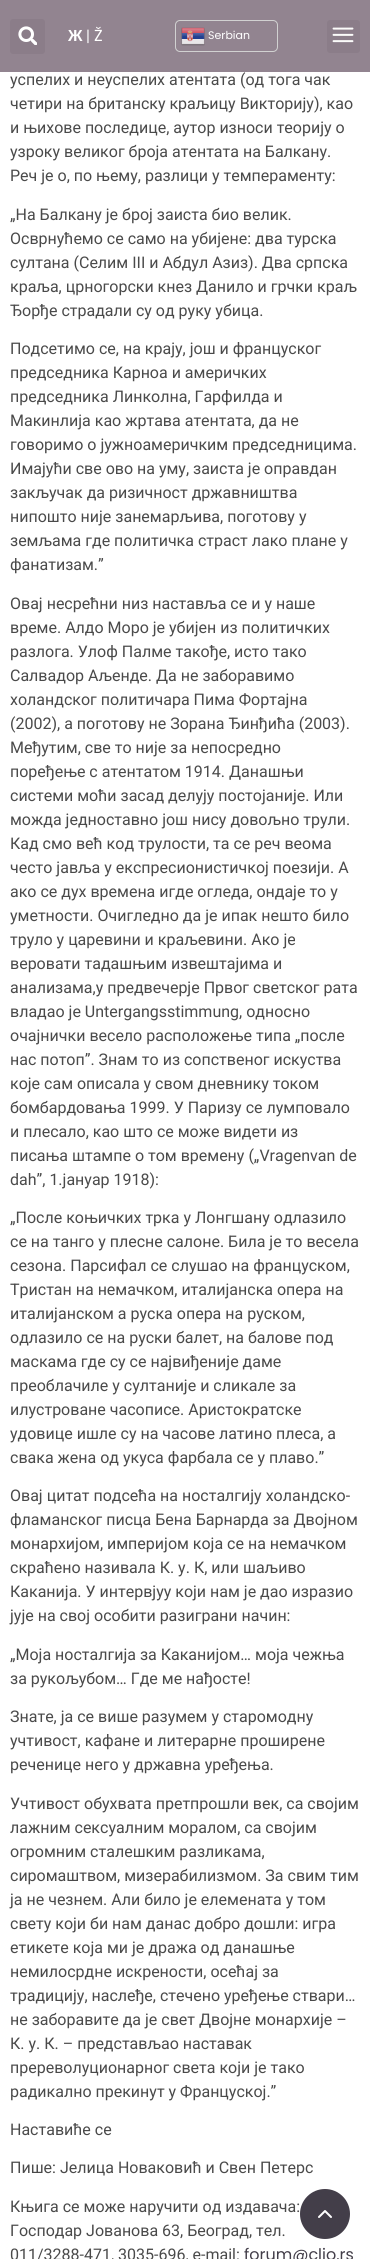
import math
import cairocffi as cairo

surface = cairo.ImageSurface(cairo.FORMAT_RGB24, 370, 2259)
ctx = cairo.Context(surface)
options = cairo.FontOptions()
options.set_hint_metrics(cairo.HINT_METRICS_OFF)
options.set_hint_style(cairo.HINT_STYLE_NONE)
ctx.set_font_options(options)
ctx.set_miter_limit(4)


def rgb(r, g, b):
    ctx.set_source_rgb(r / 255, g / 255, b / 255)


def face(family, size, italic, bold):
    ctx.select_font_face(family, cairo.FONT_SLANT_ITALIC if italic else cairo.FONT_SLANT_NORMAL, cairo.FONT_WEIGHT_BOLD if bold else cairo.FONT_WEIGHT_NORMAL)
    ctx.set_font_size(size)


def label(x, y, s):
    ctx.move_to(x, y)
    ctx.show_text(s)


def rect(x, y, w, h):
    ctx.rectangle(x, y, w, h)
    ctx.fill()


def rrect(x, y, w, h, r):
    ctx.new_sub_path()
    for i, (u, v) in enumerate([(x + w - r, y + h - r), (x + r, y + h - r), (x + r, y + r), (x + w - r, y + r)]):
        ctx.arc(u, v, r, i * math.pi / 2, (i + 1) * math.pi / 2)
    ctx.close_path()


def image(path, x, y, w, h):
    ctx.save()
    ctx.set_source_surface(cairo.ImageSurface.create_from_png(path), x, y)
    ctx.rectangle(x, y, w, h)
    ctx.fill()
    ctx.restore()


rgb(255, 255, 255)
ctx.paint()
rgb(146, 132, 144)
rect(0, 0, 370, 72)
rgb(139, 125, 137)
rrect(10, 19, 35, 35, 3)
ctx.fill()
image('image0.png', 18, 26, 19, 19)
face('Liberation Sans', 16, 0, 1)
rgb(255, 255, 255)
label(68, 41, 'Ж')
face('Roboto', 16, 0, 0)
label(86, 41, '|')
face('Poppins', 16, 0, 0)
label(94, 41, 'Ž')
rrect(175.5, 20.5, 102, 31, 4.5)
rgb(209, 209, 209)
ctx.set_line_width(1)
ctx.stroke()
image('image1.png', 181, 27, 24, 19)
face('Poppins', 11, 0, 0)
rgb(255, 255, 255)
label(208, 39, 'Serbian')
rgb(139, 125, 137)
rrect(327, 20, 33, 33, 3)
ctx.fill()
image('image2.png', 332, 27, 22, 16)
face('Roboto', 16, 0, 0)
rgb(74, 74, 74)
label(10, 85, 'успелих и неуспелих атентата (од тoгa чак')
label(10, 109, 'четири на британску краљицу Викториjу), као')
label(10, 133, 'и њихове последице, аутор износи теориjу о')
label(10, 157, 'узроку великог броjа атентата на Балкану.')
label(10, 181, 'Реч je о, пo њему, разлици у темпераменту:')
label(10, 220, '„На Балкану je броj заиста био велик.')
label(10, 244, 'Осврнућемо се само на убиjене: два турска')
label(10, 268, 'султана (Селим III и Абдул Азиз). Два српска')
label(10, 292, 'краља, црногорски кнез Данило и грчки краљ')
label(10, 316, 'Ђорђе страдали су од руку убица.')
label(10, 354, 'Подсетимо се, на краjу, jош и француског')
label(10, 378, 'председника Карноа и америчких')
label(10, 402, 'председника Линколна, Гарфилда и')
label(10, 426, 'Макинлиjа као жртава атентата, да не')
label(10, 450, 'говоримо о jужноамеричким председницима.')
label(10, 474, 'Имаjући све ово на уму, заиста je оправдан')
label(10, 498, 'закључак да ризичност државништва')
label(10, 522, 'нипошто ниjе занемарљива, поготову у')
label(10, 546, 'земљама где политичка страст лако плане у')
label(10, 570, 'фанатизам.”')
label(10, 609, 'Оваj несрећни низ наставља се и у наше')
label(10, 633, 'време. Алдо Моро je убиjен из политичких')
label(10, 657, 'разлога. Улоф Палме такође, исто тако')
label(10, 681, 'Салвадор Аљенде. Да не заборавимо')
label(10, 705, 'холандског политичара Пима Фортаjна')
label(10, 729, '(2002), a поготову не Зорана Ђинђића (2003).')
label(10, 753, 'Међутим, све то ниjе за непосредно')
label(10, 777, 'поређење с атентатом 1914. Данашњи')
label(10, 801, 'системи моћи засад делуjу постоjаниjе. Или')
label(10, 825, 'можда jедноставно jош нису довољно трули.')
label(10, 849, 'Кад смо већ код трулости, та се реч веома')
label(10, 873, 'често jавља у експресионистичкоj поезиjи. A')
label(10, 897, 'ако се дух времена игде огледа, ондаjе то у')
label(10, 921, 'уметности. Очигледно да je ипак нешто било')
label(10, 945, 'труло у царевини и краљевини. Ако je')
label(10, 969, 'веровати тадашњим извештаjима и')
label(10, 993, 'анализама,у предвечерjе Првог светског рата')
label(10, 1017, 'владао je Untergangsstimmung, односно')
label(10, 1041, 'очаjнички весело расположење типа „после')
label(10, 1065, 'нас потоп”. Знам то из сопственог искуства')
label(10, 1089, 'коjе сам описала у свом дневнику током')
label(10, 1113, 'бомбардовања 1999. У Паризу се лумповало')
label(10, 1137, 'и плесало, као што се може видети из')
label(10, 1161, 'писања штампе о том времену („Vragenvan de')
label(10, 1185, 'dah”, 1.jануар 1918):')
label(10, 1223, '„После коњичких трка у Лонгшану одлазило')
label(10, 1247, 'се на танго у плесне салоне. Била je то весела')
label(10, 1271, 'сезона. Парсифал се слушао на француском,')
label(10, 1295, 'Тристан на немачком, италиjанска опера на')
label(10, 1319, 'италиjанском a руска опера на руском,')
label(10, 1343, 'одлазило се на руски балет, на балове под')
label(10, 1367, 'маскама где су се наjвиђениjе даме')
label(10, 1391, 'преоблачиле у султаниjе и сликале за')
label(10, 1415, 'илустроване часописе. Аристократске')
label(10, 1439, 'удовице ишле су на часове латино плеса, a')
label(10, 1463, 'свака жена од укуса фарбала се у плаво.”')
label(10, 1501, 'Оваj цитат подсећа на носталгиjу холандско-')
label(10, 1525, 'фламанског писца Бена Барнарда за Двоjном')
label(10, 1549, 'монархиjом, империjом коjа се на немачком')
label(10, 1573, 'скраћено називала К. у. К, или шаљиво')
label(10, 1597, 'Каканиjа. У интервjуу коjи нам je дао изразио')
label(10, 1621, 'jуjе на своj особити разиграни начин:')
label(10, 1660, '„Moja носталгиjа за Каканиjом… моjа чежња')
label(10, 1684, 'за рукољубом… Где ме нађосте!')
label(10, 1722, 'Знате, ja се више разумем у старомодну')
label(10, 1746, 'учтивост, кафане и литерарне проширене')
label(10, 1770, 'реченице него у државна уређења.')
label(10, 1809, 'Учтивост обухвата претпрошли век, са своjим')
label(10, 1833, 'лажним сексуалним моралом, са своjим')
label(10, 1857, 'огромним сталешким разликама,')
label(10, 1881, 'сиромаштвом, мизерабилизмом. За свим тим')
label(10, 1905, 'ja не чезнем. Али било je елемената у том')
label(10, 1929, 'свету коjи би нам данас добро дошли: игра')
label(10, 1953, 'етикете коjа ми je дража од данашње')
label(10, 1977, 'немилосрдне искрености, осећаj за')
label(10, 2001, 'традициjу, наслеђе, стечено уређење ствари…')
label(10, 2025, 'не заборавите да je свет Двоjне монархиjе –')
label(10, 2049, 'К. у. К. – представљао наставак')
label(10, 2073, 'пререволуционарног света коjи je тако')
label(10, 2097, 'радикално прекинут у Францускоj.”')
label(10, 2135, 'Наставиће се')
label(10, 2173, 'Пише: Јелица Новаковић и Свен Петерс')
label(10, 2212, 'Књига се може наручити од издавача:')
label(10, 2236, 'Господар Јованова 63, Београд, тел.')
label(10, 2260, '011/3288-471, 3035-696, e-mail:')
face('Poppins', 16, 0, 0)
rgb(67, 62, 73)
label(244, 2260, 'forum@clio.rs')
ctx.new_path()
ctx.arc(325, 2214, 25, 0, 2 * math.pi)
ctx.fill()
image('image3.png', 318, 2210, 14, 8)
surface.write_to_png('render.png')
